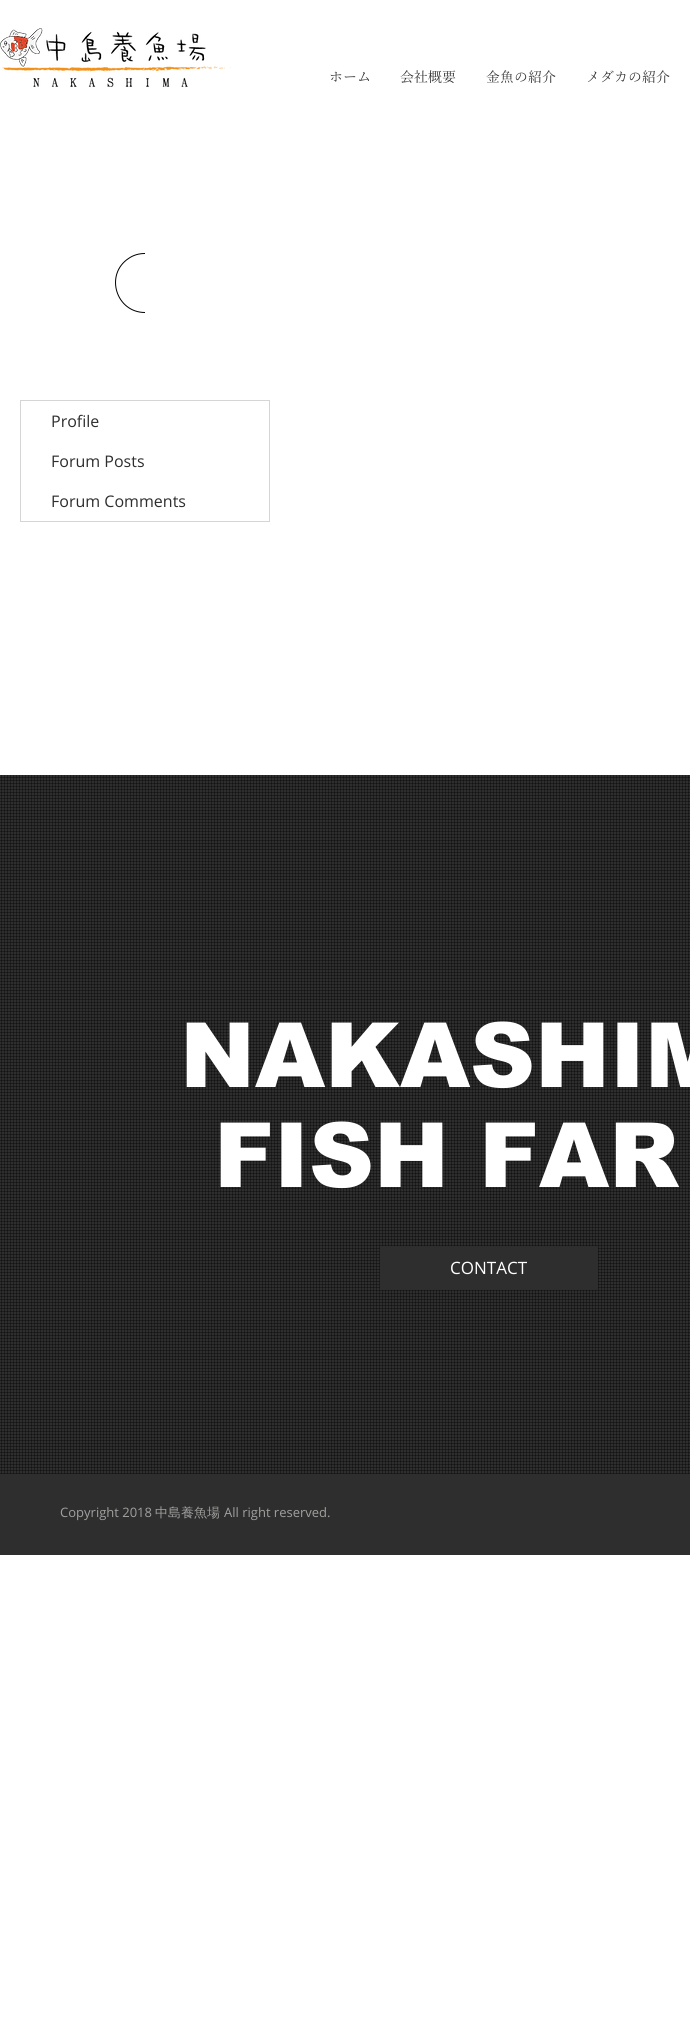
import math
import cairocffi as cairo

surface = cairo.ImageSurface(cairo.FORMAT_RGB24, 690, 2044)
ctx = cairo.Context(surface)
options = cairo.FontOptions()
options.set_hint_metrics(cairo.HINT_METRICS_OFF)
options.set_hint_style(cairo.HINT_STYLE_NONE)
ctx.set_font_options(options)
ctx.set_miter_limit(4)


def rgb(r, g, b):
    ctx.set_source_rgb(r / 255, g / 255, b / 255)


def face(family, size, italic, bold):
    ctx.select_font_face(family, cairo.FONT_SLANT_ITALIC if italic else cairo.FONT_SLANT_NORMAL, cairo.FONT_WEIGHT_BOLD if bold else cairo.FONT_WEIGHT_NORMAL)
    ctx.set_font_size(size)


def label(x, y, s):
    ctx.move_to(x, y)
    ctx.show_text(s)


def rect(x, y, w, h):
    ctx.rectangle(x, y, w, h)
    ctx.fill()


def image(path, x, y, w, h):
    ctx.save()
    ctx.set_source_surface(cairo.ImageSurface.create_from_png(path), x, y)
    ctx.rectangle(x, y, w, h)
    ctx.fill()
    ctx.restore()


rgb(255, 255, 255)
ctx.paint()
image('image0.png', 0, 28, 231, 59)
face('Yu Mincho', 14, 0, 0)
rgb(47, 46, 46)
label(329, 82, 'ホーム')
label(400, 82, '会社概要')
label(486, 82, '金魚の紹介')
label(586, 82, 'メダカの紹介')
ctx.new_path()
ctx.move_to(145, 312.5)
ctx.curve_to(116, 312.5, 104.5, 274.5, 128.5, 258.5)
ctx.curve_to(133.5, 255, 139, 253.5, 145, 253.5)
rgb(0, 0, 0)
ctx.set_line_width(1)
ctx.stroke()
ctx.rectangle(20.5, 400.5, 249, 121)
rgb(213, 213, 213)
ctx.stroke()
face('Open Sans', 16, 0, 0)
rgb(47, 46, 46)
label(51, 427, 'Profile')
label(51, 467, 'Forum Posts')
label(51, 507, 'Forum Comments')
rect(0, 775, 690, 780)
image('image1.png', 0, 775, 690, 699)
face('arial Black', 90, 0, 0)
rgb(255, 255, 255)
label(180, 1087, 'NAKASHIM')
label(214, 1187, 'FISH FAR')
rgb(47, 46, 46)
rect(380, 1246, 218, 44)
face('Open Sans', 17, 0, 0)
rgb(255, 255, 255)
label(450, 1274, 'CONTACT')
face('Open Sans', 13, 0, 0)
rgb(160, 160, 159)
label(60, 1517, 'Copyright 2018')
face('WenQuanYi Zen Hei Medium', 13, 0, 0)
label(155, 1517, '中島養魚場')
face('Open Sans', 13, 0, 0)
label(224, 1517, 'All right reserved.')
surface.write_to_png('render.png')
